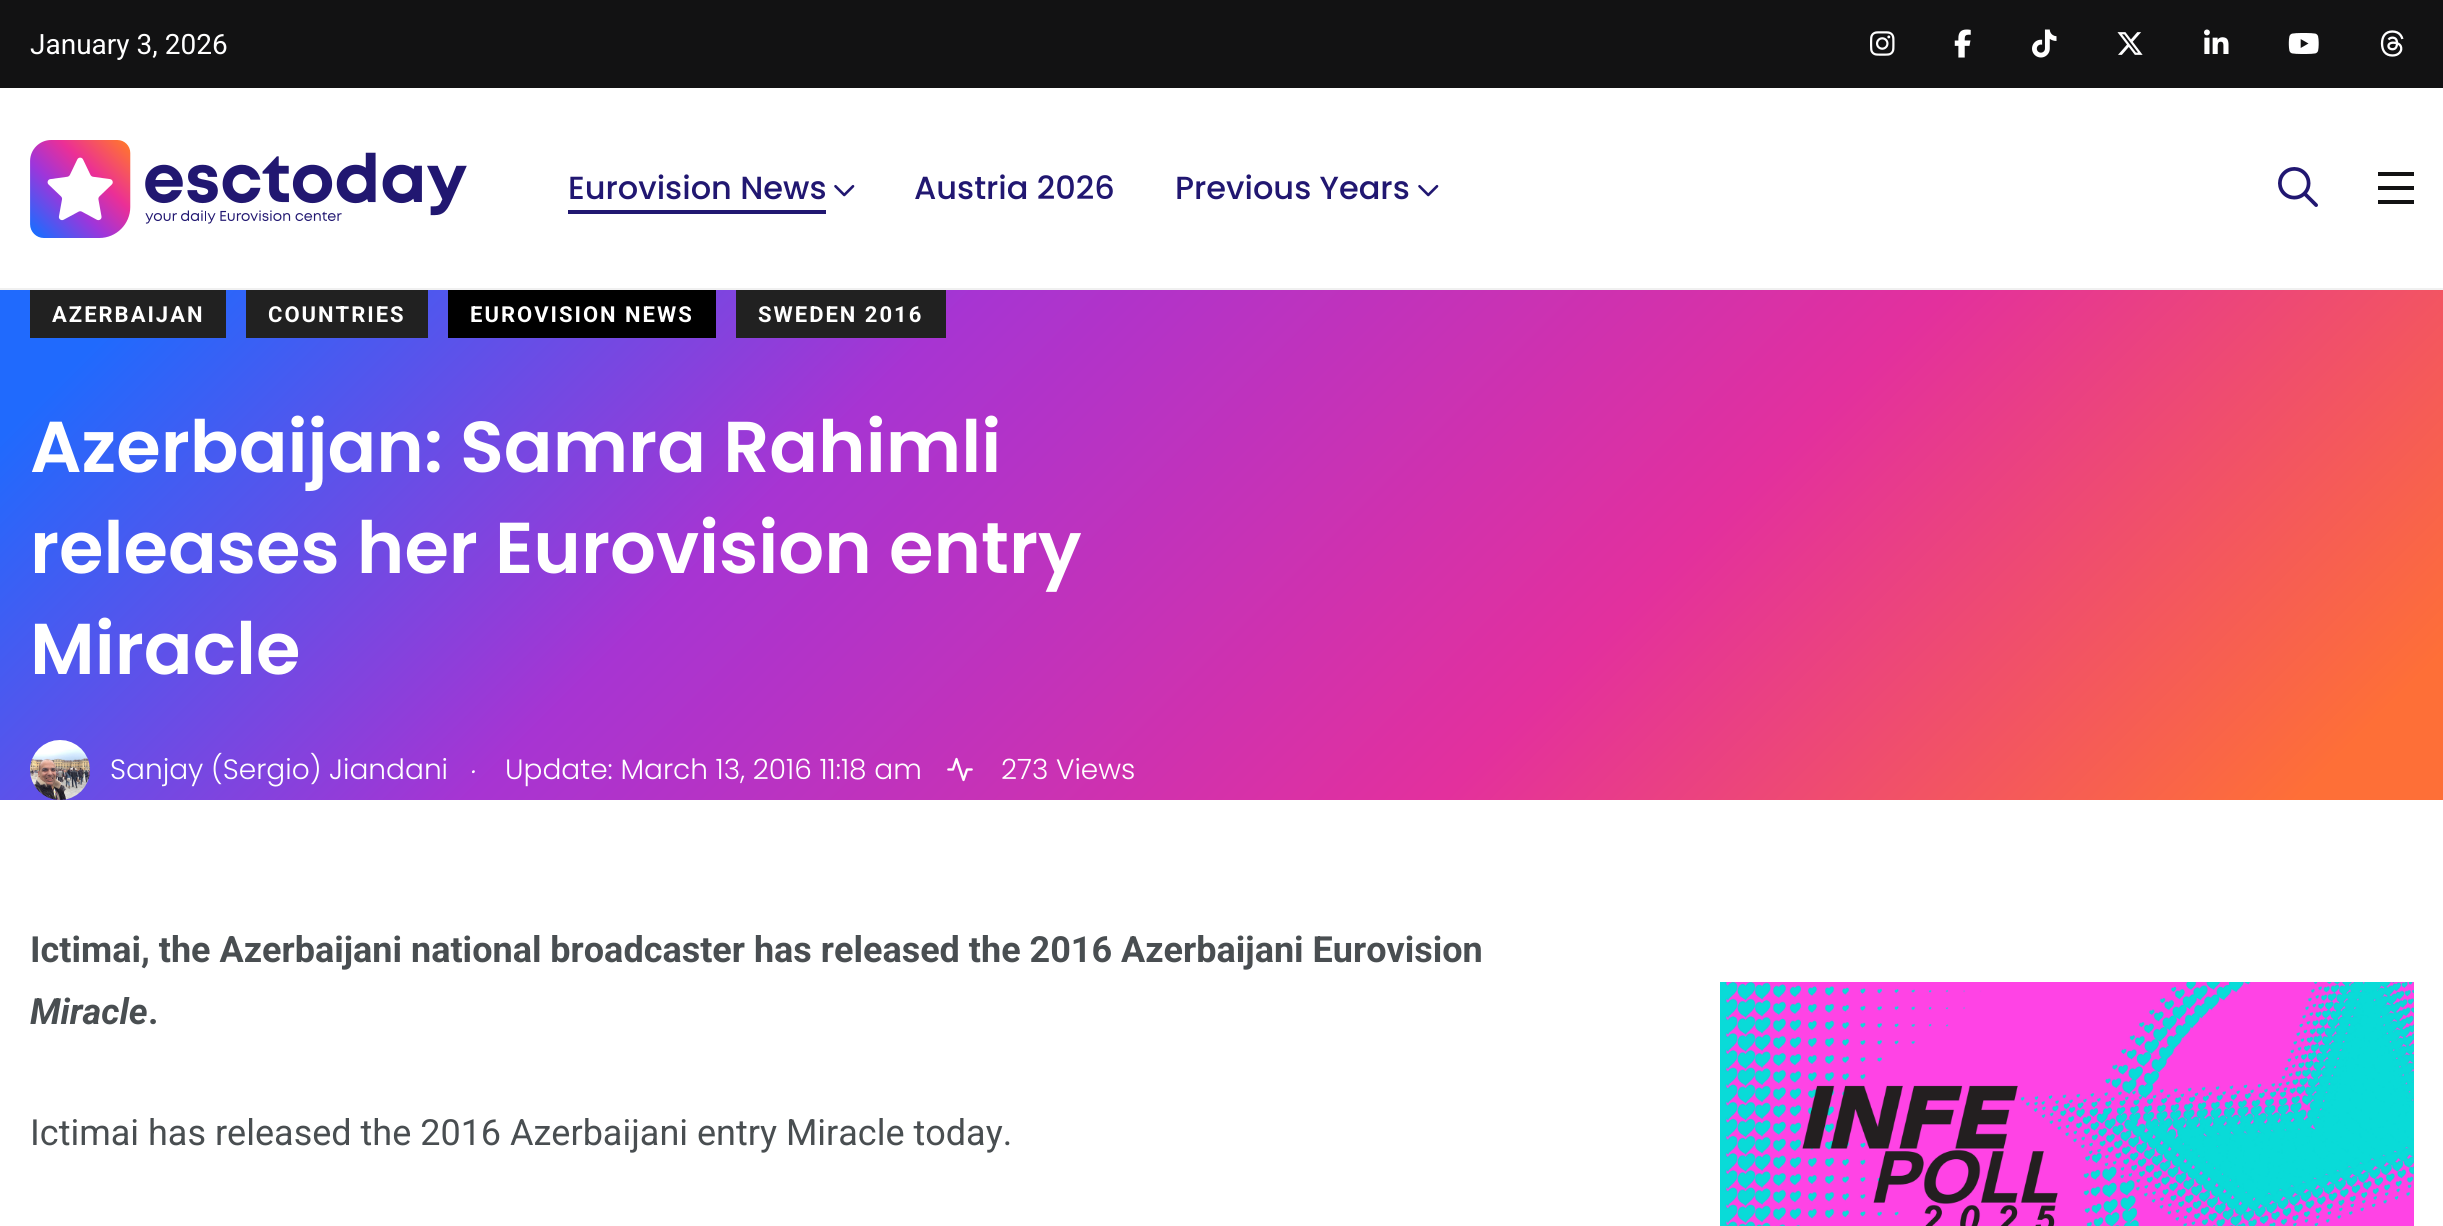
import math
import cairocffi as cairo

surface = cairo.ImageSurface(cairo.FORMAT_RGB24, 2443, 1226)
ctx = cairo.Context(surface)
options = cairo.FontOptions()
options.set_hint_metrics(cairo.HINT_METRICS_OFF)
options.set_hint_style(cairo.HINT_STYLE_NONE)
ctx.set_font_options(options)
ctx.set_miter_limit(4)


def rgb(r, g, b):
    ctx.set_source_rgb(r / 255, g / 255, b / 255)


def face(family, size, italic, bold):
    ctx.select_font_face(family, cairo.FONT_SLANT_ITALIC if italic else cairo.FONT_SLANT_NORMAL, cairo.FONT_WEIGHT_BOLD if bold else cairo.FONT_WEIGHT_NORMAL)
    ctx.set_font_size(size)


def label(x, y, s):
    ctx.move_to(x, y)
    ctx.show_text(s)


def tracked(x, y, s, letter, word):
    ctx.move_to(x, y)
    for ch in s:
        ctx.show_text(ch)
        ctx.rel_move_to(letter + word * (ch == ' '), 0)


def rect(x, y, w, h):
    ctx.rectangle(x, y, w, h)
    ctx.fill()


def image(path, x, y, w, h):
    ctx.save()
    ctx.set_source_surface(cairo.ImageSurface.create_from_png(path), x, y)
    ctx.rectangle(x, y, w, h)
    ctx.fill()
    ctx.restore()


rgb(255, 255, 255)
ctx.paint()
rgb(18, 18, 19)
rect(0, 0, 2443, 88)
face('Roboto', 28, 0, 0)
rgb(255, 255, 255)
label(30, 54, 'January 3, 2026')
image('image0.png', 1870, 31, 25, 25)
image('image1.png', 1954, 29, 17, 29)
image('image2.png', 2032, 29, 25, 29)
image('image3.png', 2117, 32, 26, 23)
image('image4.png', 2204, 29, 25, 25)
image('image5.png', 2288, 33, 31, 21)
image('image6.png', 2380, 30, 24, 27)
rgb(240, 240, 240)
rect(0, 288, 2443, 2)
image('image7.png', 30, 140, 437, 98)
face('Poppins Medium', 32, 0, 0)
rgb(33, 23, 113)
label(568, 199, 'Eurovision News')
image('image8.png', 834, 184, 21, 13)
rect(568, 210, 258, 4)
label(914, 199, 'Austria 2026')
label(1175, 199, 'Previous Years')
image('image8.png', 1418, 184, 21, 13)
image('image9.png', 2278, 167, 40, 40)
rgb(18, 18, 19)
rect(2378, 172, 36, 4)
rect(2378, 186, 36, 4)
rect(2378, 200, 36, 4)
gradient = cairo.LinearGradient(484, -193, 1961, 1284)
gradient.add_color_stop_rgba(0.05, 0.125, 0.416, 0.992, 1)
gradient.add_color_stop_rgba(0.33, 0.655, 0.204, 0.824, 1)
gradient.add_color_stop_rgba(0.66, 0.89, 0.188, 0.616, 1)
gradient.add_color_stop_rgba(0.95, 0.996, 0.435, 0.216, 1)
ctx.set_source(gradient)
rect(0, 290, 2443, 510)
rgb(33, 33, 33)
rect(30, 290, 196, 48)
face('Roboto', 22, 0, 1)
rgb(255, 255, 255)
tracked(52, 322, 'AZERBAIJAN', 2, 0)
rgb(33, 33, 33)
rect(246, 290, 182, 48)
rgb(255, 255, 255)
tracked(268, 322, 'COUNTRIES', 2, 0)
rgb(0, 0, 0)
rect(448, 290, 268, 48)
rgb(255, 255, 255)
tracked(470, 322, 'EUROVISION NEWS', 2, 0)
rgb(33, 33, 33)
rect(736, 290, 210, 48)
rgb(255, 255, 255)
tracked(758, 322, 'SWEDEN 2016', 2, 0)
face('Poppins SemiBold', 72, 0, 0)
label(30, 472, 'Azerbaijan: Samra Rahimli')
label(30, 573, 'releases her Eurovision entry')
label(30, 674, 'Miracle')
image('image10.png', 30, 740, 60, 60)
face('Poppins Light', 28, 0, 0)
label(110, 779, 'Sanjay (Sergio) Jiandani')
face('Poppins Light', 28, 1, 0)
label(472, 773, '.')
face('Poppins Light', 28, 0, 0)
label(505, 779, 'Update: March 13, 2016 11:18 am')
image('image11.png', 947, 757, 26, 25)
label(1001, 779, '273 Views')
face('Roboto', 36, 0, 1)
rgb(73, 78, 81)
label(30, 962, 'Ictimai, the Azerbaijani national broadcaster has released the 2016 Azerbaijani Eurovision')
face('Roboto', 36, 1, 1)
label(30, 1024, 'Miracle')
face('Roboto', 36, 0, 1)
label(148, 1024, '.')
face('Roboto', 36, 0, 0)
label(30, 1145, 'Ictimai has released the 2016 Azerbaijani entry Miracle today.')
image('image12.png', 1720, 982, 694, 244)
surface.write_to_png('render.png')
